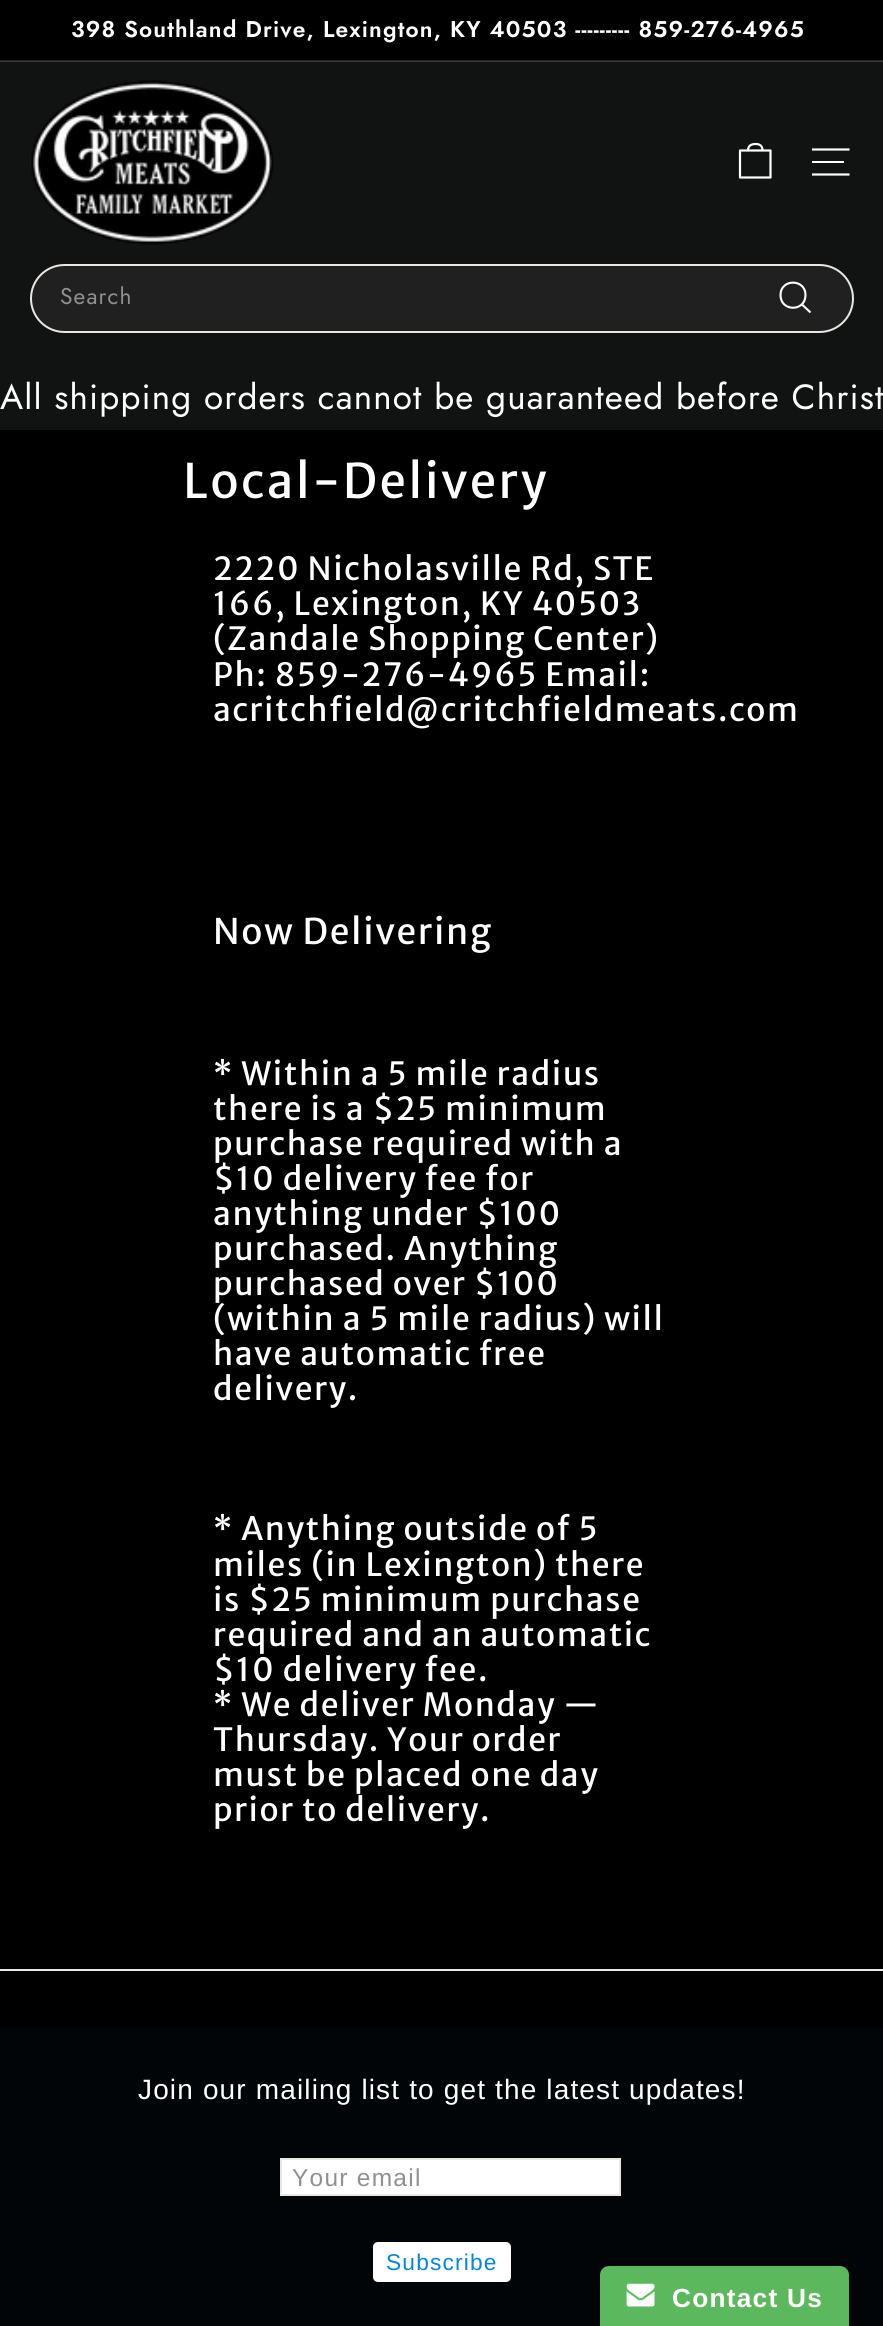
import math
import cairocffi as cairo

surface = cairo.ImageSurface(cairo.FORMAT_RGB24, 883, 2326)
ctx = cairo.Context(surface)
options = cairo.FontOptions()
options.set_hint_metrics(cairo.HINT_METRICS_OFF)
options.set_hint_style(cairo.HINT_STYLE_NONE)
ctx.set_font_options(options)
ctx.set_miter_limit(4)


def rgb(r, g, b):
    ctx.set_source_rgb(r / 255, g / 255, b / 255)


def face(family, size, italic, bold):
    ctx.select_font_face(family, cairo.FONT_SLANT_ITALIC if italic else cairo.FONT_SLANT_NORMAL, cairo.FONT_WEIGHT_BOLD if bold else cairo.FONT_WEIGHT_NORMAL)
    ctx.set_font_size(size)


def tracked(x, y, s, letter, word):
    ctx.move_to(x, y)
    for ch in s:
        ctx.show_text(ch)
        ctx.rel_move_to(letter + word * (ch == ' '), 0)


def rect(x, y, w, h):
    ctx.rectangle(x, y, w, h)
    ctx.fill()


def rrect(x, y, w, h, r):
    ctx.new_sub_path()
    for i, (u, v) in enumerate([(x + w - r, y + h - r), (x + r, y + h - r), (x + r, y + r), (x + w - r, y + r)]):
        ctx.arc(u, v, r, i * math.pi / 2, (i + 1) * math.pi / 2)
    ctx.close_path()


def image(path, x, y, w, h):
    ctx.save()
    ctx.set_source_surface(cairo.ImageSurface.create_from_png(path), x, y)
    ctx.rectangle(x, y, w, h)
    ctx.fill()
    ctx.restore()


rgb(0, 0, 0)
ctx.paint()
rgb(38, 38, 38)
rect(0, 60, 883, 1)
face('Jost SemiBold', 22.75, 0, 0)
rgb(255, 255, 255)
tracked(71, 37, '398 Southland Drive, Lexington, KY 40503 --------- 859-276-4965', 1.15, 0)
rgb(53, 54, 54)
rect(0, 61, 883, 1)
rgb(17, 18, 18)
rect(0, 62, 883, 265)
image('image0.png', 30, 80, 244, 165)
ctx.new_path()
ctx.move_to(748, 150.5)
ctx.curve_to(748, 145.5, 751.5, 144, 755.5, 144)
ctx.curve_to(759.5, 144, 762.5, 145.5, 762.5, 150.5)
ctx.move_to(740, 150.5)
ctx.line_to(770.5, 150.5)
ctx.line_to(770.5, 177.5)
ctx.line_to(740, 177.5)
ctx.close_path()
rgb(255, 255, 255)
ctx.set_line_width(2.2)
ctx.set_line_join(cairo.LINE_JOIN_ROUND)
ctx.stroke()
ctx.new_path()
ctx.move_to(812, 149.5)
ctx.line_to(849.5, 149.5)
ctx.stroke()
rect(812, 161, 32, 2)
ctx.new_path()
ctx.move_to(812, 174.5)
ctx.line_to(849.5, 174.5)
ctx.stroke()
rgb(17, 18, 18)
ctx.new_path()
ctx.move_to(0, 327)
ctx.line_to(0, 430)
ctx.line_to(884, 430)
ctx.line_to(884, 1796)
ctx.line_to(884, 327)
ctx.close_path()
ctx.fill()
rgb(32, 32, 32)
rrect(31, 265, 822, 67, 33.5)
ctx.fill_preserve()
rgb(232, 232, 225)
ctx.set_line_width(2)
ctx.set_line_join(cairo.LINE_JOIN_MITER)
ctx.stroke()
face('Jost', 22.75, 0, 0)
rgb(144, 144, 144)
tracked(60, 304, 'Search', 1.15, 0)
ctx.new_path()
ctx.move_to(805.5, 295)
ctx.curve_to(805.5, 312, 780.5, 312, 780.5, 295)
ctx.curve_to(780.5, 278.5, 805.5, 278.5, 805.5, 295)
ctx.move_to(810.5, 312.5)
ctx.line_to(802, 304.5)
rgb(255, 255, 255)
ctx.set_line_width(2.1)
ctx.set_line_join(cairo.LINE_JOIN_ROUND)
ctx.stroke()
face('Jost', 35, 0, 0)
tracked(0, 409, 'All shipping orders cannot be guaranteed before Christ', 1.15, 0)
face('Merriweather Sans', 47.5, 0, 0)
tracked(183, 498, 'Local-Delivery', 2.4, 0)
face('Merriweather Sans', 31.9, 0, 0)
tracked(213, 580, '2220 Nicholasville Rd, STE', 1.6, 0)
tracked(213, 615, '166, Lexington, KY 40503', 1.6, 0)
tracked(213, 650, '(Zandale Shopping Center)', 1.6, 0)
tracked(213, 686, 'Ph: 859-276-4965 Email:', 1.6, 0)
tracked(213, 721, 'acritchfield@critchfieldmeats.com', 1.6, 0)
face('Merriweather Sans', 35.25, 0, 0)
tracked(213, 944, 'Now Delivering', 1.75, 0)
face('Merriweather Sans', 31.9, 0, 0)
tracked(213, 1085, '* Within a 5 mile radius', 1.6, 0)
tracked(213, 1120, 'there is a $25 minimum', 1.6, 0)
tracked(213, 1155, 'purchase required with a', 1.6, 0)
tracked(213, 1190, '$10 delivery fee for', 1.6, 0)
tracked(213, 1225, 'anything under $100', 1.6, 0)
tracked(213, 1260, 'purchased. Anything', 1.6, 0)
tracked(213, 1295, 'purchased over $100', 1.6, 0)
tracked(213, 1330, '(within a 5 mile radius) will', 1.6, 0)
tracked(213, 1365, 'have automatic free', 1.6, 0)
tracked(213, 1400, 'delivery.', 1.6, 0)
tracked(213, 1540, '* Anything outside of 5', 1.6, 0)
tracked(213, 1576, 'miles (in Lexington) there', 1.6, 0)
tracked(213, 1611, 'is $25 minimum purchase', 1.6, 0)
tracked(213, 1646, 'required and an automatic', 1.6, 0)
tracked(213, 1681, '$10 delivery fee.', 1.6, 0)
tracked(213, 1716, '* We deliver Monday —', 1.6, 0)
tracked(213, 1751, 'Thursday. Your order', 1.6, 0)
tracked(213, 1786, 'must be placed one day', 1.6, 0)
tracked(213, 1821, 'prior to delivery.', 1.6, 0)
rgb(232, 232, 225)
rect(0, 1969, 883, 2)
rgb(1, 5, 8)
rect(0, 2028, 883, 298)
face('Liberation Sans', 28, 0, 0)
rgb(255, 255, 255)
tracked(138, 2099, 'Join our mailing list to get the latest updates!', 1.15, 0)
ctx.rectangle(281, 2159, 339, 36)
ctx.fill_preserve()
rgb(232, 232, 225)
ctx.set_line_width(2)
ctx.set_line_join(cairo.LINE_JOIN_MITER)
ctx.stroke()
face('Liberation Sans', 24.5, 0, 0)
rgb(144, 144, 144)
tracked(292, 2186, 'Your email', 1.25, 0)
rgb(255, 255, 255)
rrect(373, 2242, 138, 40, 5)
ctx.fill()
face('Liberation Sans', 22.75, 0, 0)
rgb(0, 136, 221)
tracked(386, 2270, 'Subscribe', 1.15, 0)
rgb(92, 184, 92)
ctx.new_path()
ctx.move_to(609, 2266)
ctx.line_to(840, 2266)
ctx.curve_to(845, 2266, 849, 2270, 849, 2275)
ctx.line_to(849, 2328)
ctx.line_to(600, 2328)
ctx.line_to(600, 2275)
ctx.curve_to(600, 2270, 604, 2266, 609, 2266)
ctx.close_path()
ctx.fill()
image('image1.png', 626, 2283, 29, 24)
face('Liberation Sans', 26.25, 0, 1)
rgb(255, 255, 255)
tracked(672, 2307, 'Contact Us', 1.25, 0)
surface.write_to_png('render.png')
